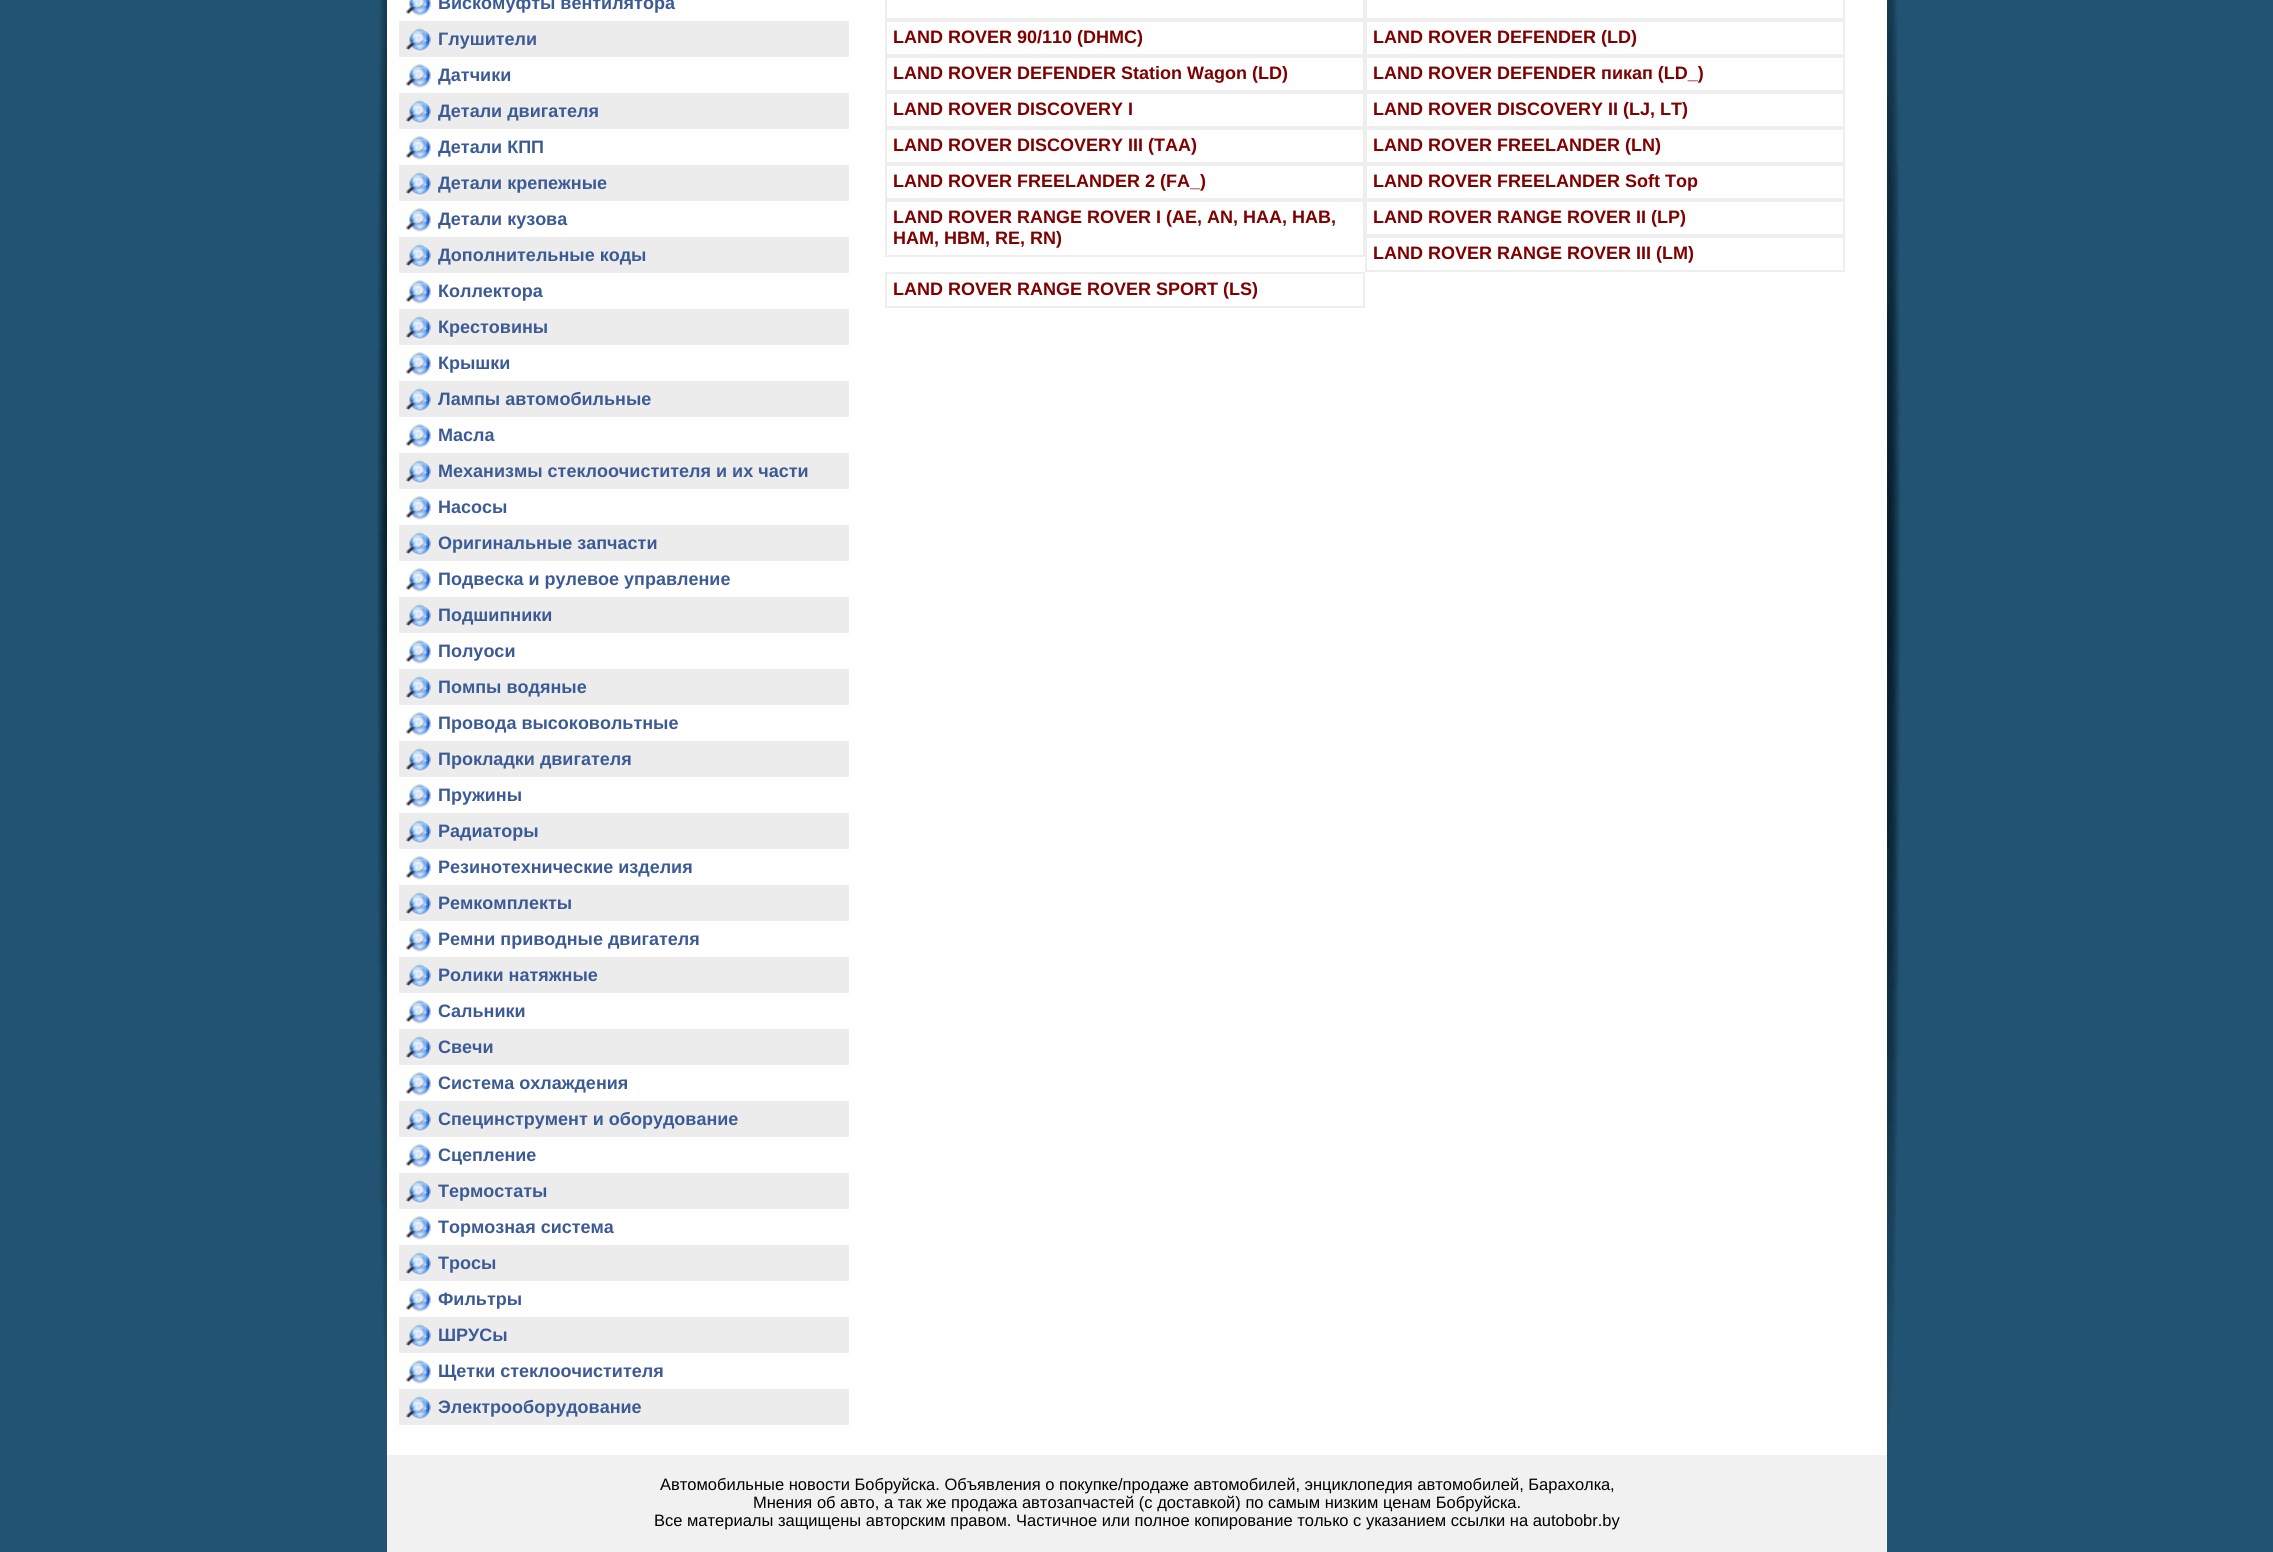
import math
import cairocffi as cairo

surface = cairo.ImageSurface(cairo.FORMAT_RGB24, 2273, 1552)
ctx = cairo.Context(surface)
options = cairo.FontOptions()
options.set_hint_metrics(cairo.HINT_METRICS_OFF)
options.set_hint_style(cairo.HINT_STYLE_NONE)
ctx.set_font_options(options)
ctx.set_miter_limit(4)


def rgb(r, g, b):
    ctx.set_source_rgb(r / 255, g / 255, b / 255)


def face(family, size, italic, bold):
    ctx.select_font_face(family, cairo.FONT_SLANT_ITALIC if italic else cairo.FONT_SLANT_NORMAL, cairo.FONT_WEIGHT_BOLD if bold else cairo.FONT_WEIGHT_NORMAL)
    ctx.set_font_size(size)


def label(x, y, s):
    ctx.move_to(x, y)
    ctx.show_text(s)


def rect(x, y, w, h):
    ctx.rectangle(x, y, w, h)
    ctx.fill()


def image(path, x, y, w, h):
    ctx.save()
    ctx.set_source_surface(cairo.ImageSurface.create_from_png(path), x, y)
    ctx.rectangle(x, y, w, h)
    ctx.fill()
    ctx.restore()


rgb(34, 83, 115)
ctx.paint()
image('image0.png', 377, 0, 1524, 1427)
rgb(255, 255, 255)
rect(387, 0, 1500, 1455)
image('image1.png', 406, 0, 25, 16)
face('Liberation Sans', 18, 0, 1)
rgb(60, 91, 150)
label(438, 9, 'Вискомуфты вентилятора')
rgb(236, 236, 236)
rect(399, 21, 450, 36)
image('image2.png', 406, 28, 25, 24)
rgb(60, 91, 150)
label(438, 45, 'Глушители')
image('image3.png', 406, 64, 25, 24)
label(438, 81, 'Датчики')
rgb(236, 236, 236)
rect(399, 93, 450, 36)
image('image2.png', 406, 100, 25, 24)
rgb(60, 91, 150)
label(438, 117, 'Детали двигателя')
image('image3.png', 406, 136, 25, 24)
label(438, 153, 'Детали КПП')
rgb(236, 236, 236)
rect(399, 165, 450, 36)
image('image2.png', 406, 172, 25, 24)
rgb(60, 91, 150)
label(438, 189, 'Детали крепежные')
image('image3.png', 406, 208, 25, 24)
label(438, 225, 'Детали кузова')
rgb(236, 236, 236)
rect(399, 237, 450, 36)
image('image2.png', 406, 244, 25, 24)
rgb(60, 91, 150)
label(438, 261, 'Дополнительные коды')
image('image3.png', 406, 280, 25, 24)
label(438, 297, 'Коллектора')
rgb(236, 236, 236)
rect(399, 309, 450, 36)
image('image2.png', 406, 316, 25, 24)
rgb(60, 91, 150)
label(438, 333, 'Крестовины')
image('image3.png', 406, 352, 25, 24)
label(438, 369, 'Крышки')
rgb(236, 236, 236)
rect(399, 381, 450, 36)
image('image2.png', 406, 388, 25, 24)
rgb(60, 91, 150)
label(438, 405, 'Лампы автомобильные')
image('image3.png', 406, 424, 25, 24)
label(438, 441, 'Масла')
rgb(236, 236, 236)
rect(399, 453, 450, 36)
image('image2.png', 406, 460, 25, 24)
rgb(60, 91, 150)
label(438, 477, 'Механизмы стеклоочистителя и их части')
image('image3.png', 406, 496, 25, 24)
label(438, 513, 'Насосы')
rgb(236, 236, 236)
rect(399, 525, 450, 36)
image('image2.png', 406, 532, 25, 24)
rgb(60, 91, 150)
label(438, 549, 'Оригинальные запчасти')
image('image3.png', 406, 568, 25, 24)
label(438, 585, 'Подвеска и рулевое управление')
rgb(236, 236, 236)
rect(399, 597, 450, 36)
image('image2.png', 406, 604, 25, 24)
rgb(60, 91, 150)
label(438, 621, 'Подшипники')
image('image3.png', 406, 640, 25, 24)
label(438, 657, 'Полуоси')
rgb(236, 236, 236)
rect(399, 669, 450, 36)
image('image2.png', 406, 676, 25, 24)
rgb(60, 91, 150)
label(438, 693, 'Помпы водяные')
image('image3.png', 406, 712, 25, 24)
label(438, 729, 'Провода высоковольтные')
rgb(236, 236, 236)
rect(399, 741, 450, 36)
image('image2.png', 406, 748, 25, 24)
rgb(60, 91, 150)
label(438, 765, 'Прокладки двигателя')
image('image3.png', 406, 784, 25, 24)
label(438, 801, 'Пружины')
rgb(236, 236, 236)
rect(399, 813, 450, 36)
image('image2.png', 406, 820, 25, 24)
rgb(60, 91, 150)
label(438, 837, 'Радиаторы')
image('image3.png', 406, 856, 25, 24)
label(438, 873, 'Резинотехнические изделия')
rgb(236, 236, 236)
rect(399, 885, 450, 36)
image('image2.png', 406, 892, 25, 24)
rgb(60, 91, 150)
label(438, 909, 'Ремкомплекты')
image('image3.png', 406, 928, 25, 24)
label(438, 945, 'Ремни приводные двигателя')
rgb(236, 236, 236)
rect(399, 957, 450, 36)
image('image2.png', 406, 964, 25, 24)
rgb(60, 91, 150)
label(438, 981, 'Ролики натяжные')
image('image3.png', 406, 1000, 25, 24)
label(438, 1017, 'Сальники')
rgb(236, 236, 236)
rect(399, 1029, 450, 36)
image('image2.png', 406, 1036, 25, 24)
rgb(60, 91, 150)
label(438, 1053, 'Свечи')
image('image3.png', 406, 1072, 25, 24)
label(438, 1089, 'Система охлаждения')
rgb(236, 236, 236)
rect(399, 1101, 450, 36)
image('image2.png', 406, 1108, 25, 24)
rgb(60, 91, 150)
label(438, 1125, 'Специнструмент и оборудование')
image('image3.png', 406, 1144, 25, 24)
label(438, 1161, 'Сцепление')
rgb(236, 236, 236)
rect(399, 1173, 450, 36)
image('image2.png', 406, 1180, 25, 24)
rgb(60, 91, 150)
label(438, 1197, 'Термостаты')
image('image3.png', 406, 1216, 25, 24)
label(438, 1233, 'Тормозная система')
rgb(236, 236, 236)
rect(399, 1245, 450, 36)
image('image2.png', 406, 1252, 25, 24)
rgb(60, 91, 150)
label(438, 1269, 'Тросы')
image('image3.png', 406, 1288, 25, 24)
label(438, 1305, 'Фильтры')
rgb(236, 236, 236)
rect(399, 1317, 450, 36)
image('image2.png', 406, 1324, 25, 24)
rgb(60, 91, 150)
label(438, 1341, 'ШРУСы')
image('image3.png', 406, 1360, 25, 24)
label(438, 1377, 'Щетки стеклоочистителя')
rgb(236, 236, 236)
rect(399, 1389, 450, 36)
image('image2.png', 406, 1396, 25, 24)
rgb(60, 91, 150)
label(438, 1413, 'Электрооборудование')
ctx.rectangle(886, -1, 478, 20)
rgb(238, 238, 238)
ctx.stroke()
ctx.rectangle(1366, -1, 478, 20)
ctx.stroke()
ctx.rectangle(886, 21, 478, 34)
ctx.stroke()
rgb(128, 0, 0)
label(893, 43, 'LAND ROVER 90/110 (DHMC)')
ctx.rectangle(1366, 21, 478, 34)
rgb(238, 238, 238)
ctx.stroke()
rgb(128, 0, 0)
label(1373, 43, 'LAND ROVER DEFENDER (LD)')
ctx.rectangle(886, 57, 478, 34)
rgb(238, 238, 238)
ctx.stroke()
rgb(128, 0, 0)
label(893, 79, 'LAND ROVER DEFENDER Station Wagon (LD)')
ctx.rectangle(1366, 57, 478, 34)
rgb(238, 238, 238)
ctx.stroke()
rgb(128, 0, 0)
label(1373, 79, 'LAND ROVER DEFENDER пикап (LD_)')
ctx.rectangle(886, 93, 478, 34)
rgb(238, 238, 238)
ctx.stroke()
rgb(128, 0, 0)
label(893, 115, 'LAND ROVER DISCOVERY I')
ctx.rectangle(1366, 93, 478, 34)
rgb(238, 238, 238)
ctx.stroke()
rgb(128, 0, 0)
label(1373, 115, 'LAND ROVER DISCOVERY II (LJ, LT)')
ctx.rectangle(886, 129, 478, 34)
rgb(238, 238, 238)
ctx.stroke()
rgb(128, 0, 0)
label(893, 151, 'LAND ROVER DISCOVERY III (TAA)')
ctx.rectangle(1366, 129, 478, 34)
rgb(238, 238, 238)
ctx.stroke()
rgb(128, 0, 0)
label(1373, 151, 'LAND ROVER FREELANDER (LN)')
ctx.rectangle(886, 165, 478, 34)
rgb(238, 238, 238)
ctx.stroke()
rgb(128, 0, 0)
label(893, 187, 'LAND ROVER FREELANDER 2 (FA_)')
ctx.rectangle(1366, 165, 478, 34)
rgb(238, 238, 238)
ctx.stroke()
rgb(128, 0, 0)
label(1373, 187, 'LAND ROVER FREELANDER Soft Top')
ctx.rectangle(886, 201, 478, 55)
rgb(238, 238, 238)
ctx.stroke()
rgb(128, 0, 0)
label(893, 223, 'LAND ROVER RANGE ROVER I (AE, AN, HAA, HAB,')
label(893, 244, 'HAM, HBM, RE, RN)')
ctx.rectangle(1366, 201, 478, 34)
rgb(238, 238, 238)
ctx.stroke()
rgb(128, 0, 0)
label(1373, 223, 'LAND ROVER RANGE ROVER II (LP)')
ctx.rectangle(1366, 237, 478, 34)
rgb(238, 238, 238)
ctx.stroke()
rgb(128, 0, 0)
label(1373, 259, 'LAND ROVER RANGE ROVER III (LM)')
ctx.rectangle(886, 273, 478, 34)
rgb(238, 238, 238)
ctx.stroke()
rgb(128, 0, 0)
label(893, 295, 'LAND ROVER RANGE ROVER SPORT (LS)')
rgb(241, 241, 241)
rect(387, 1455, 1500, 97)
face('Liberation Sans', 16.5, 0, 0)
rgb(0, 0, 0)
label(660, 1490, 'Автомобильные новости Бобруйска. Объявления о покупке/продаже автомобилей, энциклопедия автомобилей, Барахолка,')
label(753, 1508, 'Мнения об авто, а так же продажа автозапчастей (с доставкой) по самым низким ценам Бобруйска.')
label(654, 1526, 'Все материалы защищены авторским правом. Частичное или полное копирование только с указанием ссылки на autobobr.by')
surface.write_to_png('render.png')
